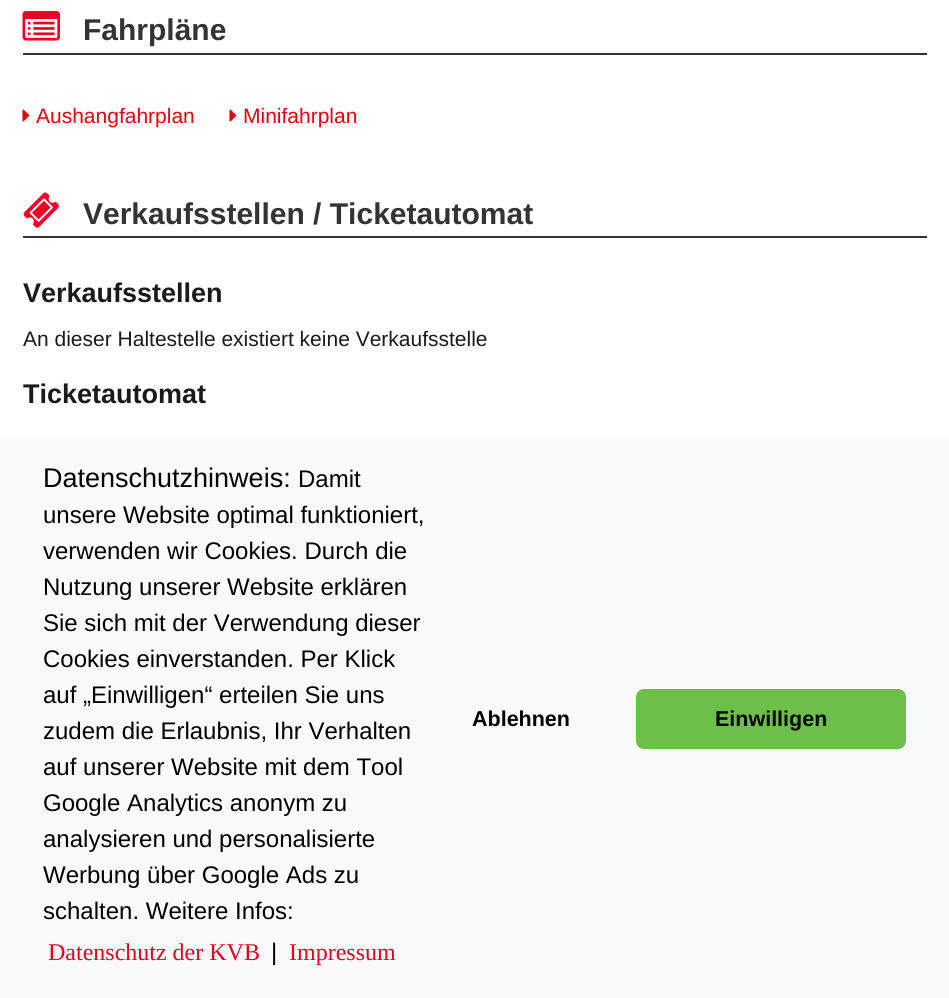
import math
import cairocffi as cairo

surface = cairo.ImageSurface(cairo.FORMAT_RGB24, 949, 998)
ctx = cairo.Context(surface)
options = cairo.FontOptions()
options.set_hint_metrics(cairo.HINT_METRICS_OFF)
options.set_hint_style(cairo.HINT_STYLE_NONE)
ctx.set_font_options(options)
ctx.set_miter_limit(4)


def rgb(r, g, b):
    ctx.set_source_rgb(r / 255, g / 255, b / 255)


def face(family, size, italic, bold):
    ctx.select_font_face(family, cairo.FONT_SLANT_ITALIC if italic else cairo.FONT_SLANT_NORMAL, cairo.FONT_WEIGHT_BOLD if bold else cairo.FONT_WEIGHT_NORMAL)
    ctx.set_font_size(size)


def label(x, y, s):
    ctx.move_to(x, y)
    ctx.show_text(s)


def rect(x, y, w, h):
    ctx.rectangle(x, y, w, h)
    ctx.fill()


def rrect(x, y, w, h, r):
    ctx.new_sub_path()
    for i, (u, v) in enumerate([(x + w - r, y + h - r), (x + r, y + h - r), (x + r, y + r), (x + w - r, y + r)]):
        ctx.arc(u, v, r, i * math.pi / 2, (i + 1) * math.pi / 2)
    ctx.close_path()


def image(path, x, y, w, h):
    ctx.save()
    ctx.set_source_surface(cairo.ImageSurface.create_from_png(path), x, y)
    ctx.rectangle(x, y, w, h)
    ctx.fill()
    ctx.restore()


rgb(255, 255, 255)
ctx.paint()
rgb(51, 51, 51)
rect(23, 53, 904, 2)
image('image0.png', 22, 11, 38, 30)
face('Liberation Sans', 30, 0, 1)
label(83, 40, 'Fahrpläne')
image('image1.png', 22, 109, 8, 13)
face('Liberation Sans', 21, 0, 0)
rgb(227, 0, 15)
label(36, 123, 'Aushangfahrplan')
image('image1.png', 229, 109, 8, 13)
label(243, 123, 'Minifahrplan')
rgb(51, 51, 51)
rect(23, 236, 904, 2)
image('image2.png', 23, 192, 36, 36)
face('Liberation Sans', 30, 0, 1)
label(83, 224, 'Verkaufsstellen / Ticketautomat')
face('Liberation Sans', 27, 0, 1)
rgb(26, 26, 26)
label(23, 302, 'Verkaufsstellen')
face('Liberation Sans', 21, 0, 0)
label(23, 346, 'An dieser Haltestelle existiert keine Verkaufsstelle')
face('Liberation Sans', 27, 0, 1)
label(23, 403, 'Ticketautomat')
rgb(250, 250, 250)
rect(0, 438, 949, 560)
face('Liberation Sans', 27, 0, 0)
rgb(0, 0, 0)
label(43, 487, 'Datenschutzhinweis:')
face('Liberation Sans', 24, 0, 0)
label(298, 487, 'Damit')
label(43, 523, 'unsere Website optimal funktioniert,')
label(43, 559, 'verwenden wir Cookies. Durch die')
label(43, 595, 'Nutzung unserer Website erklären')
label(43, 631, 'Sie sich mit der Verwendung dieser')
label(43, 667, 'Cookies einverstanden. Per Klick')
label(43, 703, 'auf „Einwilligen“ erteilen Sie uns')
label(43, 739, 'zudem die Erlaubnis, Ihr Verhalten')
label(43, 775, 'auf unserer Website mit dem Tool')
label(43, 811, 'Google Analytics anonym zu')
label(43, 847, 'analysieren und personalisierte')
label(43, 883, 'Werbung über Google Ads zu')
label(43, 919, 'schalten. Weitere Infos:')
face('Liberation Serif', 24, 0, 0)
rgb(224, 0, 36)
label(48, 960, 'Datenschutz der KVB')
face('Liberation Sans', 24, 0, 0)
rgb(0, 0, 0)
label(271, 960, '|')
face('Liberation Serif', 24, 0, 0)
rgb(224, 0, 36)
label(289, 960, 'Impressum')
face('Liberation Sans', 21.5, 0, 1)
rgb(0, 0, 0)
label(472, 726, 'Ablehnen')
rgb(108, 192, 74)
rrect(636, 689, 270, 60, 8)
ctx.fill()
rgb(0, 0, 0)
label(715, 726, 'Einwilligen')
surface.write_to_png('render.png')
